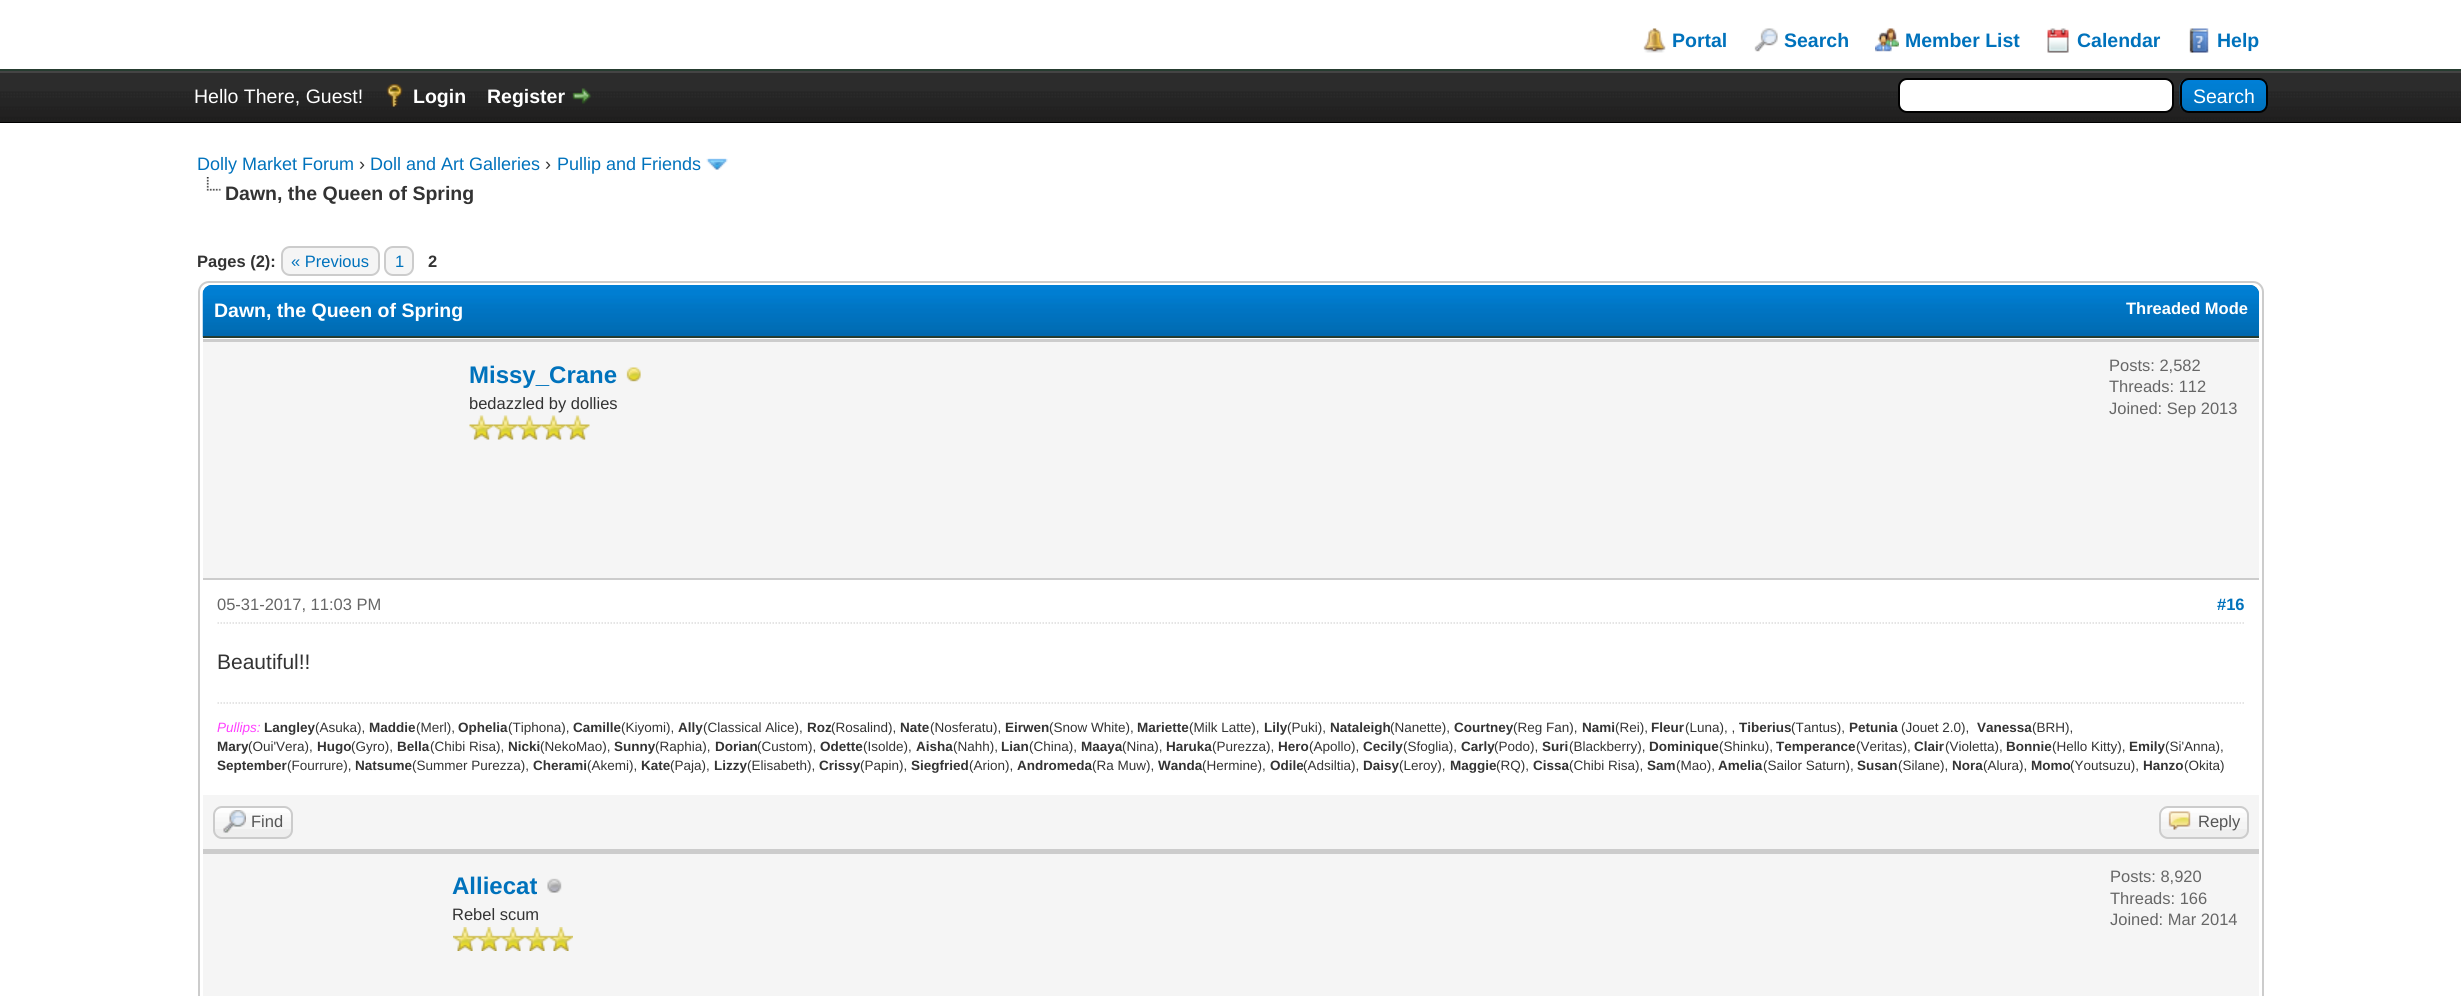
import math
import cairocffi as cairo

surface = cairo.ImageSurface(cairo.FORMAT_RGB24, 2461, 996)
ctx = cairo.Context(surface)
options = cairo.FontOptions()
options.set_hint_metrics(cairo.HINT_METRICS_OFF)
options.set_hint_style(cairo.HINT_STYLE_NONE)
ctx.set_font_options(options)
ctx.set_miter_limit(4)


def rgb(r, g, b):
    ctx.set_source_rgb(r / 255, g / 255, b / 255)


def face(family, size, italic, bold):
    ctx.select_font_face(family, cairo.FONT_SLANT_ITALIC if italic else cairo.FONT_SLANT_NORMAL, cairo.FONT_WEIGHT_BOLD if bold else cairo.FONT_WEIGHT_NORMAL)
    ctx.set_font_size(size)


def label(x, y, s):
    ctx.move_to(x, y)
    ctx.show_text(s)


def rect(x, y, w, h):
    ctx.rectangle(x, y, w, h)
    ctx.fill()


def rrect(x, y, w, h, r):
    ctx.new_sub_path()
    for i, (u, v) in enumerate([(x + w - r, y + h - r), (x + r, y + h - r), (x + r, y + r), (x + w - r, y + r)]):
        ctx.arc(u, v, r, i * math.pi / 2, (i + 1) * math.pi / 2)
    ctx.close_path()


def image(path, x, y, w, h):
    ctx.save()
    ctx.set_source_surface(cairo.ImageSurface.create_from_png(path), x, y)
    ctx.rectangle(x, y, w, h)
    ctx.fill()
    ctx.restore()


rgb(255, 255, 255)
ctx.paint()
rgb(38, 60, 48)
rect(0, 69, 2461, 2)
image('image0.png', 1643, 28, 23, 25)
face('Liberation Sans', 19.5, 0, 1)
rgb(0, 114, 188)
label(1672, 47, 'Portal')
image('image1.png', 1754, 28, 24, 24)
label(1784, 47, 'Search')
image('image2.png', 1875, 28, 24, 24)
label(1905, 47, 'Member List')
image('image3.png', 2047, 28, 22, 25)
label(2077, 47, 'Calendar')
image('image4.png', 2189, 28, 20, 25)
label(2217, 47, 'Help')
image('image5.png', 0, 73, 2461, 49)
rgb(68, 68, 68)
rect(0, 71, 2461, 2)
rgb(0, 0, 0)
rect(0, 122, 2461, 1)
face('Liberation Sans', 19.5, 0, 0)
rgb(255, 255, 255)
label(194, 103, 'Hello There, Guest!')
image('image6.png', 386, 84, 17, 23)
face('Liberation Sans', 19.5, 0, 1)
label(413, 103, 'Login')
label(487, 103, 'Register')
image('image7.png', 572, 88, 20, 16)
rrect(1899, 79, 274, 33, 8)
ctx.fill_preserve()
rgb(0, 0, 0)
ctx.stroke()
image('image8.png', 2179, 79, 89, 34)
rrect(2181, 79, 86, 33, 8)
ctx.stroke()
face('Liberation Sans', 19.5, 0, 0)
rgb(255, 255, 255)
label(2193, 103, 'Search')
face('Liberation Sans', 18, 0, 0)
rgb(0, 114, 188)
label(197, 170, 'Dolly Market Forum')
rgb(51, 51, 51)
label(359, 170, '›')
rgb(0, 114, 188)
label(370, 170, 'Doll and Art Galleries')
rgb(51, 51, 51)
label(545, 170, '›')
rgb(0, 114, 188)
label(557, 170, 'Pullip and Friends')
image('image9.png', 706, 158, 22, 12)
image('image10.png', 206, 177, 15, 14)
face('Liberation Sans', 19.5, 0, 1)
rgb(51, 51, 51)
label(225, 200, 'Dawn, the Queen of Spring')
face('Liberation Sans', 16.5, 0, 1)
label(197, 267, 'Pages (2):')
rgb(245, 245, 245)
rrect(282, 247, 97, 28, 8)
ctx.fill_preserve()
rgb(204, 204, 204)
ctx.stroke()
face('Liberation Sans', 16.5, 0, 0)
rgb(0, 114, 188)
label(291, 267, '« Previous')
rgb(245, 245, 245)
rrect(385, 247, 28, 28, 8)
ctx.fill_preserve()
rgb(204, 204, 204)
ctx.stroke()
rgb(0, 114, 188)
label(395, 267, '1')
face('Liberation Sans', 16.5, 0, 1)
rgb(51, 51, 51)
label(428, 267, '2')
rrect(199, 282, 2064, 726, 10)
rgb(204, 204, 204)
ctx.stroke()
rgb(0, 102, 162)
ctx.new_path()
ctx.move_to(212, 285)
ctx.line_to(2250, 285)
ctx.curve_to(2255, 285, 2259, 289, 2259, 294)
ctx.line_to(2259, 338)
ctx.line_to(203, 338)
ctx.line_to(203, 294)
ctx.curve_to(203, 289, 207, 285, 212, 285)
ctx.close_path()
ctx.fill()
image('image11.png', 202, 285, 2057, 53)
rgb(38, 60, 48)
rect(203, 336, 2056, 2)
face('Liberation Sans', 19.5, 0, 1)
rgb(255, 255, 255)
label(214, 317, 'Dawn, the Queen of Spring')
face('Liberation Sans', 16.5, 0, 1)
label(2126, 314, 'Threaded Mode')
rgb(245, 245, 245)
rect(203, 342, 2056, 236)
rgb(204, 204, 204)
rect(203, 339, 2056, 3)
rect(203, 578, 2056, 2)
face('Liberation Sans', 24, 0, 1)
rgb(0, 114, 188)
label(469, 383, 'Missy_Crane')
image('image12.png', 626, 367, 15, 15)
face('Liberation Sans', 16.5, 0, 0)
rgb(51, 51, 51)
label(469, 409, 'bedazzled by dollies')
image('image13.png', 469, 415, 25, 25)
image('image14.png', 493, 415, 25, 25)
image('image15.png', 517, 415, 25, 25)
image('image16.png', 541, 415, 25, 25)
image('image16.png', 565, 415, 25, 25)
rgb(102, 102, 102)
label(2109, 371, 'Posts: 2,582')
label(2109, 392, 'Threads: 112')
label(2109, 414, 'Joined: Sep 2013')
ctx.new_path()
ctx.move_to(217.5, 623)
ctx.line_to(2244, 623)
rgb(221, 221, 221)
ctx.set_line_width(1.5)
ctx.set_dash([1.5, 1.5])
ctx.stroke()
rgb(102, 102, 102)
label(217, 610, '05-31-2017, 11:03 PM')
face('Liberation Sans', 16.5, 0, 1)
rgb(0, 114, 188)
label(2217, 610, '#16')
face('Liberation Sans', 21, 0, 0)
rgb(51, 51, 51)
label(217, 669, 'Beautiful!!')
ctx.new_path()
ctx.move_to(217.5, 703)
ctx.line_to(2244, 703)
rgb(221, 221, 221)
ctx.stroke()
face('Liberation Sans', 13.5, 1, 0)
rgb(255, 64, 255)
label(217, 732, 'Pullips:')
face('Liberation Sans', 13.5, 0, 1)
rgb(51, 51, 51)
label(264, 732, 'Langley')
face('Liberation Sans', 13.5, 0, 0)
label(315, 732, '(Asuka),')
face('Liberation Sans', 13.5, 0, 1)
label(369, 732, 'Maddie')
face('Liberation Sans', 13.5, 0, 0)
label(416, 732, '(Merl),')
face('Liberation Sans', 13.5, 0, 1)
label(458, 732, 'Ophelia')
face('Liberation Sans', 13.5, 0, 0)
label(508, 732, '(Tiphona),')
face('Liberation Sans', 13.5, 0, 1)
label(573, 732, 'Camille')
face('Liberation Sans', 13.5, 0, 0)
label(621, 732, '(Kiyomi),')
face('Liberation Sans', 13.5, 0, 1)
label(678, 732, 'Ally')
face('Liberation Sans', 13.5, 0, 0)
label(703, 732, '(Classical Alice),')
face('Liberation Sans', 13.5, 0, 1)
label(807, 732, 'Roz')
face('Liberation Sans', 13.5, 0, 0)
label(831, 732, '(Rosalind),')
face('Liberation Sans', 13.5, 0, 1)
label(900, 732, 'Nate')
face('Liberation Sans', 13.5, 0, 0)
label(930, 732, '(Nosferatu),')
face('Liberation Sans', 13.5, 0, 1)
label(1005, 732, 'Eirwen')
face('Liberation Sans', 13.5, 0, 0)
label(1049, 732, '(Snow White),')
face('Liberation Sans', 13.5, 0, 1)
label(1137, 732, 'Mariette')
face('Liberation Sans', 13.5, 0, 0)
label(1189, 732, '(Milk Latte),')
face('Liberation Sans', 13.5, 0, 1)
label(1264, 732, 'Lily')
face('Liberation Sans', 13.5, 0, 0)
label(1287, 732, '(Puki),')
face('Liberation Sans', 13.5, 0, 1)
label(1330, 732, 'Nataleigh')
face('Liberation Sans', 13.5, 0, 0)
label(1390, 732, '(Nanette),')
face('Liberation Sans', 13.5, 0, 1)
label(1454, 732, 'Courtney')
face('Liberation Sans', 13.5, 0, 0)
label(1513, 732, '(Reg Fan),')
face('Liberation Sans', 13.5, 0, 1)
label(1582, 732, 'Nami')
face('Liberation Sans', 13.5, 0, 0)
label(1615, 732, '(Rei),')
face('Liberation Sans', 13.5, 0, 1)
label(1651, 732, 'Fleur')
face('Liberation Sans', 13.5, 0, 0)
label(1685, 732, '(Luna), ,')
face('Liberation Sans', 13.5, 0, 1)
label(1739, 732, 'Tiberius')
face('Liberation Sans', 13.5, 0, 0)
label(1791, 732, '(Tantus),')
face('Liberation Sans', 13.5, 0, 1)
label(1849, 732, 'Petunia')
face('Liberation Sans', 13.5, 0, 0)
label(1901, 732, '(Jouet 2.0),')
face('Liberation Sans', 13.5, 0, 1)
label(1977, 732, 'Vanessa')
face('Liberation Sans', 13.5, 0, 0)
label(2032, 732, '(BRH),')
face('Liberation Sans', 13.5, 0, 1)
label(217, 751, 'Mary')
face('Liberation Sans', 13.5, 0, 0)
label(248, 751, '(Oui\'Vera),')
face('Liberation Sans', 13.5, 0, 1)
label(317, 751, 'Hugo')
face('Liberation Sans', 13.5, 0, 0)
label(351, 751, '(Gyro),')
face('Liberation Sans', 13.5, 0, 1)
label(397, 751, 'Bella')
face('Liberation Sans', 13.5, 0, 0)
label(430, 751, '(Chibi Risa),')
face('Liberation Sans', 13.5, 0, 1)
label(508, 751, 'Nicki')
face('Liberation Sans', 13.5, 0, 0)
label(540, 751, '(NekoMao),')
face('Liberation Sans', 13.5, 0, 1)
label(614, 751, 'Sunny')
face('Liberation Sans', 13.5, 0, 0)
label(655, 751, '(Raphia),')
face('Liberation Sans', 13.5, 0, 1)
label(715, 751, 'Dorian')
face('Liberation Sans', 13.5, 0, 0)
label(757, 751, '(Custom),')
face('Liberation Sans', 13.5, 0, 1)
label(820, 751, 'Odette')
face('Liberation Sans', 13.5, 0, 0)
label(863, 751, '(Isolde),')
face('Liberation Sans', 13.5, 0, 1)
label(916, 751, 'Aisha')
face('Liberation Sans', 13.5, 0, 0)
label(953, 751, '(Nahh),')
face('Liberation Sans', 13.5, 0, 1)
label(1001, 751, 'Lian')
face('Liberation Sans', 13.5, 0, 0)
label(1029, 751, '(China),')
face('Liberation Sans', 13.5, 0, 1)
label(1081, 751, 'Maaya')
face('Liberation Sans', 13.5, 0, 0)
label(1122, 751, '(Nina),')
face('Liberation Sans', 13.5, 0, 1)
label(1166, 751, 'Haruka')
face('Liberation Sans', 13.5, 0, 0)
label(1212, 751, '(Purezza),')
face('Liberation Sans', 13.5, 0, 1)
label(1278, 751, 'Hero')
face('Liberation Sans', 13.5, 0, 0)
label(1309, 751, '(Apollo),')
face('Liberation Sans', 13.5, 0, 1)
label(1363, 751, 'Cecily')
face('Liberation Sans', 13.5, 0, 0)
label(1403, 751, '(Sfoglia),')
face('Liberation Sans', 13.5, 0, 1)
label(1461, 751, 'Carly')
face('Liberation Sans', 13.5, 0, 0)
label(1494, 751, '(Podo),')
face('Liberation Sans', 13.5, 0, 1)
label(1542, 751, 'Suri')
face('Liberation Sans', 13.5, 0, 0)
label(1569, 751, '(Blackberry),')
face('Liberation Sans', 13.5, 0, 1)
label(1649, 751, 'Dominique')
face('Liberation Sans', 13.5, 0, 0)
label(1719, 751, '(Shinku),')
face('Liberation Sans', 13.5, 0, 1)
label(1776, 751, 'Temperance')
face('Liberation Sans', 13.5, 0, 0)
label(1856, 751, '(Veritas),')
face('Liberation Sans', 13.5, 0, 1)
label(1914, 751, 'Clair')
face('Liberation Sans', 13.5, 0, 0)
label(1945, 751, '(Violetta),')
face('Liberation Sans', 13.5, 0, 1)
label(2006, 751, 'Bonnie')
face('Liberation Sans', 13.5, 0, 0)
label(2052, 751, '(Hello Kitty),')
face('Liberation Sans', 13.5, 0, 1)
label(2129, 751, 'Emily')
face('Liberation Sans', 13.5, 0, 0)
label(2165, 751, '(Si\'Anna),')
face('Liberation Sans', 13.5, 0, 1)
label(217, 770, 'September')
face('Liberation Sans', 13.5, 0, 0)
label(287, 770, '(Fourrure),')
face('Liberation Sans', 13.5, 0, 1)
label(355, 770, 'Natsume')
face('Liberation Sans', 13.5, 0, 0)
label(412, 770, '(Summer Purezza),')
face('Liberation Sans', 13.5, 0, 1)
label(533, 770, 'Cherami')
face('Liberation Sans', 13.5, 0, 0)
label(587, 770, '(Akemi),')
face('Liberation Sans', 13.5, 0, 1)
label(641, 770, 'Kate')
face('Liberation Sans', 13.5, 0, 0)
label(670, 770, '(Paja),')
face('Liberation Sans', 13.5, 0, 1)
label(714, 770, 'Lizzy')
face('Liberation Sans', 13.5, 0, 0)
label(747, 770, '(Elisabeth),')
face('Liberation Sans', 13.5, 0, 1)
label(819, 770, 'Crissy')
face('Liberation Sans', 13.5, 0, 0)
label(860, 770, '(Papin),')
face('Liberation Sans', 13.5, 0, 1)
label(911, 770, 'Siegfried')
face('Liberation Sans', 13.5, 0, 0)
label(969, 770, '(Arion),')
face('Liberation Sans', 13.5, 0, 1)
label(1017, 770, 'Andromeda')
face('Liberation Sans', 13.5, 0, 0)
label(1092, 770, '(Ra Muw),')
face('Liberation Sans', 13.5, 0, 1)
label(1158, 770, 'Wanda')
face('Liberation Sans', 13.5, 0, 0)
label(1202, 770, '(Hermine),')
face('Liberation Sans', 13.5, 0, 1)
label(1270, 770, 'Odile')
face('Liberation Sans', 13.5, 0, 0)
label(1303, 770, '(Adsiltia),')
face('Liberation Sans', 13.5, 0, 1)
label(1363, 770, 'Daisy')
face('Liberation Sans', 13.5, 0, 0)
label(1399, 770, '(Leroy),')
face('Liberation Sans', 13.5, 0, 1)
label(1450, 770, 'Maggie')
face('Liberation Sans', 13.5, 0, 0)
label(1496, 770, '(RQ),')
face('Liberation Sans', 13.5, 0, 1)
label(1533, 770, 'Cissa')
face('Liberation Sans', 13.5, 0, 0)
label(1569, 770, '(Chibi Risa),')
face('Liberation Sans', 13.5, 0, 1)
label(1647, 770, 'Sam')
face('Liberation Sans', 13.5, 0, 0)
label(1676, 770, '(Mao),')
face('Liberation Sans', 13.5, 0, 1)
label(1718, 770, 'Amelia')
face('Liberation Sans', 13.5, 0, 0)
label(1763, 770, '(Sailor Saturn),')
face('Liberation Sans', 13.5, 0, 1)
label(1857, 770, 'Susan')
face('Liberation Sans', 13.5, 0, 0)
label(1898, 770, '(Silane),')
face('Liberation Sans', 13.5, 0, 1)
label(1952, 770, 'Nora')
face('Liberation Sans', 13.5, 0, 0)
label(1983, 770, '(Alura),')
face('Liberation Sans', 13.5, 0, 1)
label(2031, 770, 'Momo')
face('Liberation Sans', 13.5, 0, 0)
label(2070, 770, '(Youtsuzu),')
face('Liberation Sans', 13.5, 0, 1)
label(2143, 770, 'Hanzo')
face('Liberation Sans', 13.5, 0, 0)
label(2184, 770, '(Okita)')
rgb(245, 245, 245)
rect(203, 795, 2056, 54)
rgb(204, 204, 204)
rect(203, 849, 2056, 5)
rgb(238, 238, 238)
rrect(213, 806, 80, 33, 9)
ctx.fill()
image('image17.png', 213, 807, 79, 22)
rrect(214, 807, 78, 31, 8)
rgb(204, 204, 204)
ctx.set_line_width(2)
ctx.set_dash([])
ctx.stroke()
image('image18.png', 223, 810, 23, 23)
face('Liberation Sans', 16.5, 0, 0)
rgb(85, 85, 85)
label(251, 827, 'Find')
rgb(238, 238, 238)
rrect(2159, 806, 90, 33, 9)
ctx.fill()
image('image19.png', 2159, 807, 89, 22)
rrect(2160, 807, 88, 31, 8)
rgb(204, 204, 204)
ctx.stroke()
image('image20.png', 2168, 811, 23, 19)
rgb(85, 85, 85)
label(2198, 827, 'Reply')
rgb(245, 245, 245)
rect(203, 854, 2056, 142)
face('Liberation Sans', 24, 0, 1)
rgb(0, 114, 188)
label(452, 894, 'Alliecat')
image('image21.png', 547, 878, 15, 15)
face('Liberation Sans', 16.5, 0, 0)
rgb(51, 51, 51)
label(452, 920, 'Rebel scum')
image('image22.png', 453, 927, 24, 24)
image('image22.png', 477, 927, 24, 24)
image('image23.png', 501, 927, 24, 24)
image('image24.png', 525, 927, 24, 24)
image('image25.png', 549, 927, 24, 24)
rgb(102, 102, 102)
label(2110, 882, 'Posts: 8,920')
label(2110, 904, 'Threads: 166')
label(2110, 925, 'Joined: Mar 2014')
surface.write_to_png('render.png')
